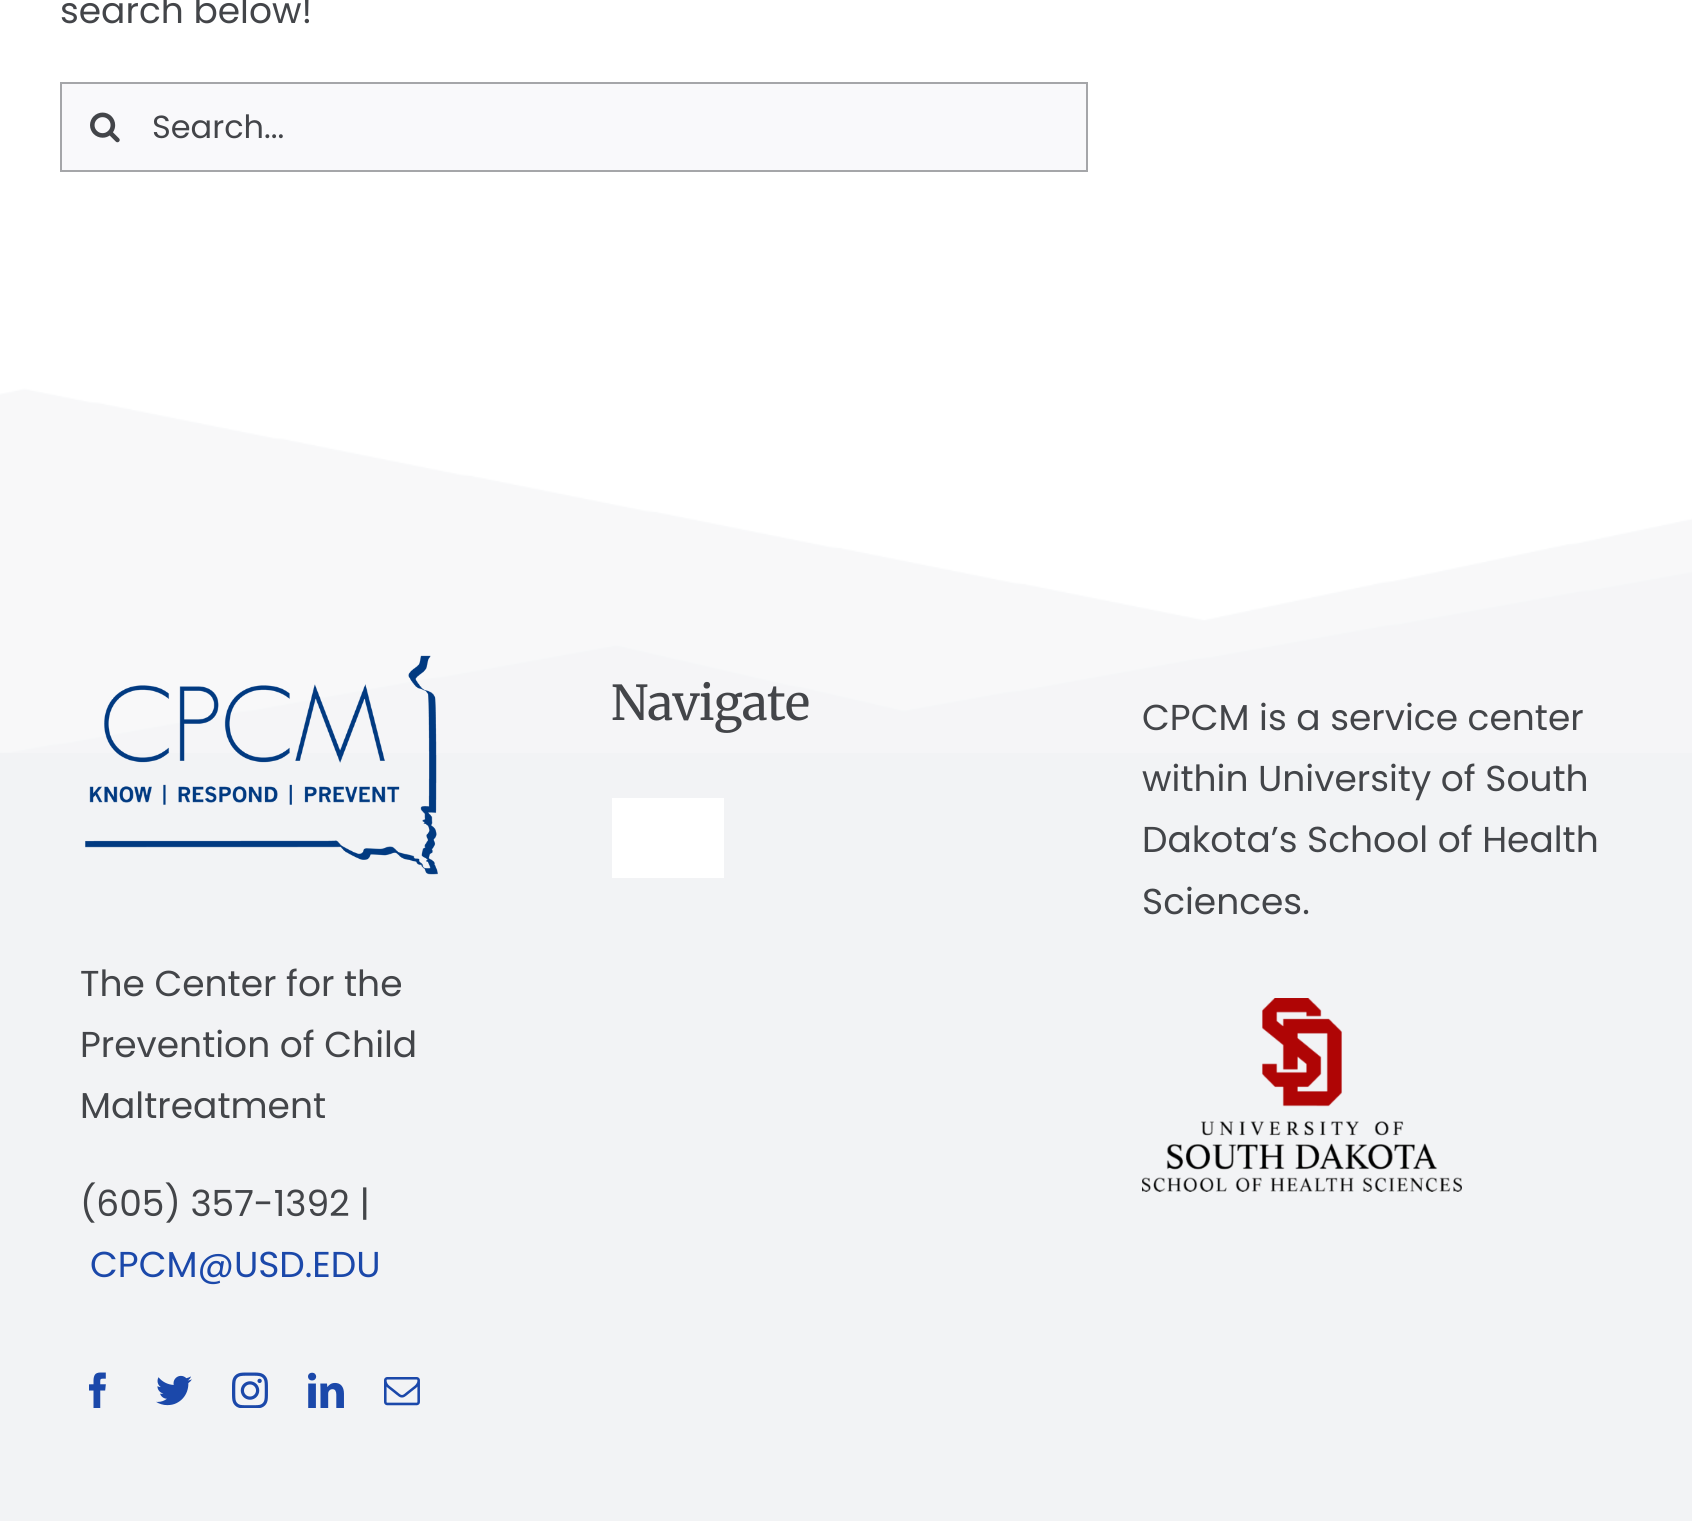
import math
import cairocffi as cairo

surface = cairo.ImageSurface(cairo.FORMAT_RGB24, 1692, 1521)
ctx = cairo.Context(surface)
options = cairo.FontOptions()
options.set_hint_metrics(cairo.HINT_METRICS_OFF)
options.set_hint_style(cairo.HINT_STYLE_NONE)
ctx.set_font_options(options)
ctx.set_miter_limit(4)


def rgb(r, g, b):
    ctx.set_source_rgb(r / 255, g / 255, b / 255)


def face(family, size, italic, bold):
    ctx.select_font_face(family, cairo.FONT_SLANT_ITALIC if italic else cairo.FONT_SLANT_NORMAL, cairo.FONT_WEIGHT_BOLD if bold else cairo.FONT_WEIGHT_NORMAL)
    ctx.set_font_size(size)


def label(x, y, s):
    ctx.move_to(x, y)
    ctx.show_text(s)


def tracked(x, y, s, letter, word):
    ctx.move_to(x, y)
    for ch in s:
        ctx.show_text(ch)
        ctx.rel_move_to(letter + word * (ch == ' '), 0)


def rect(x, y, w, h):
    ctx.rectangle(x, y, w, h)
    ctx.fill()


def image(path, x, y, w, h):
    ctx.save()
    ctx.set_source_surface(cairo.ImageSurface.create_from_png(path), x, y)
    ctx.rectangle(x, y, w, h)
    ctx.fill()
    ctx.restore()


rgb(255, 255, 255)
ctx.paint()
face('Poppins', 36, 0, 0)
rgb(67, 69, 73)
label(60, 23, 'search below!')
rgb(249, 249, 251)
ctx.rectangle(61, 83, 1026, 88)
ctx.fill_preserve()
rgb(165, 166, 169)
ctx.stroke()
image('image0.png', 90, 112, 30, 31)
face('Poppins', 32, 0, 0)
rgb(67, 69, 73)
label(152, 138, 'Search...')
rgb(242, 243, 245)
rect(0, 388, 1692, 1133)
image('image1.png', 0, 212, 1692, 541)
face('Merriweather Light', 48, 0, 0)
rgb(67, 69, 73)
tracked(611, 720, 'Navigate', -0.75, 0)
rgb(255, 255, 255)
rect(612, 798, 112, 80)
face('Poppins', 36, 0, 0)
rgb(67, 69, 73)
label(1142, 730, 'CPCM is a service center')
label(1142, 791, 'within University of South')
label(1142, 852, 'Dakota’s School of Health')
label(1142, 914, 'Sciences.')
image('image2.png', 1142, 998, 320, 194)
image('image3.png', 85, 655, 353, 220)
label(80, 996, 'The Center for the')
label(80, 1057, 'Prevention of Child')
label(80, 1118, 'Maltreatment')
label(80, 1216, '(605) 357-1392 |')
rgb(27, 72, 170)
label(90, 1277, 'CPCM@USD.EDU')
image('image4.png', 89, 1372, 17, 36)
image('image5.png', 156, 1375, 36, 31)
image('image6.png', 232, 1372, 36, 36)
image('image7.png', 308, 1372, 36, 36)
image('image8.png', 384, 1377, 36, 29)
surface.write_to_png('render.png')
